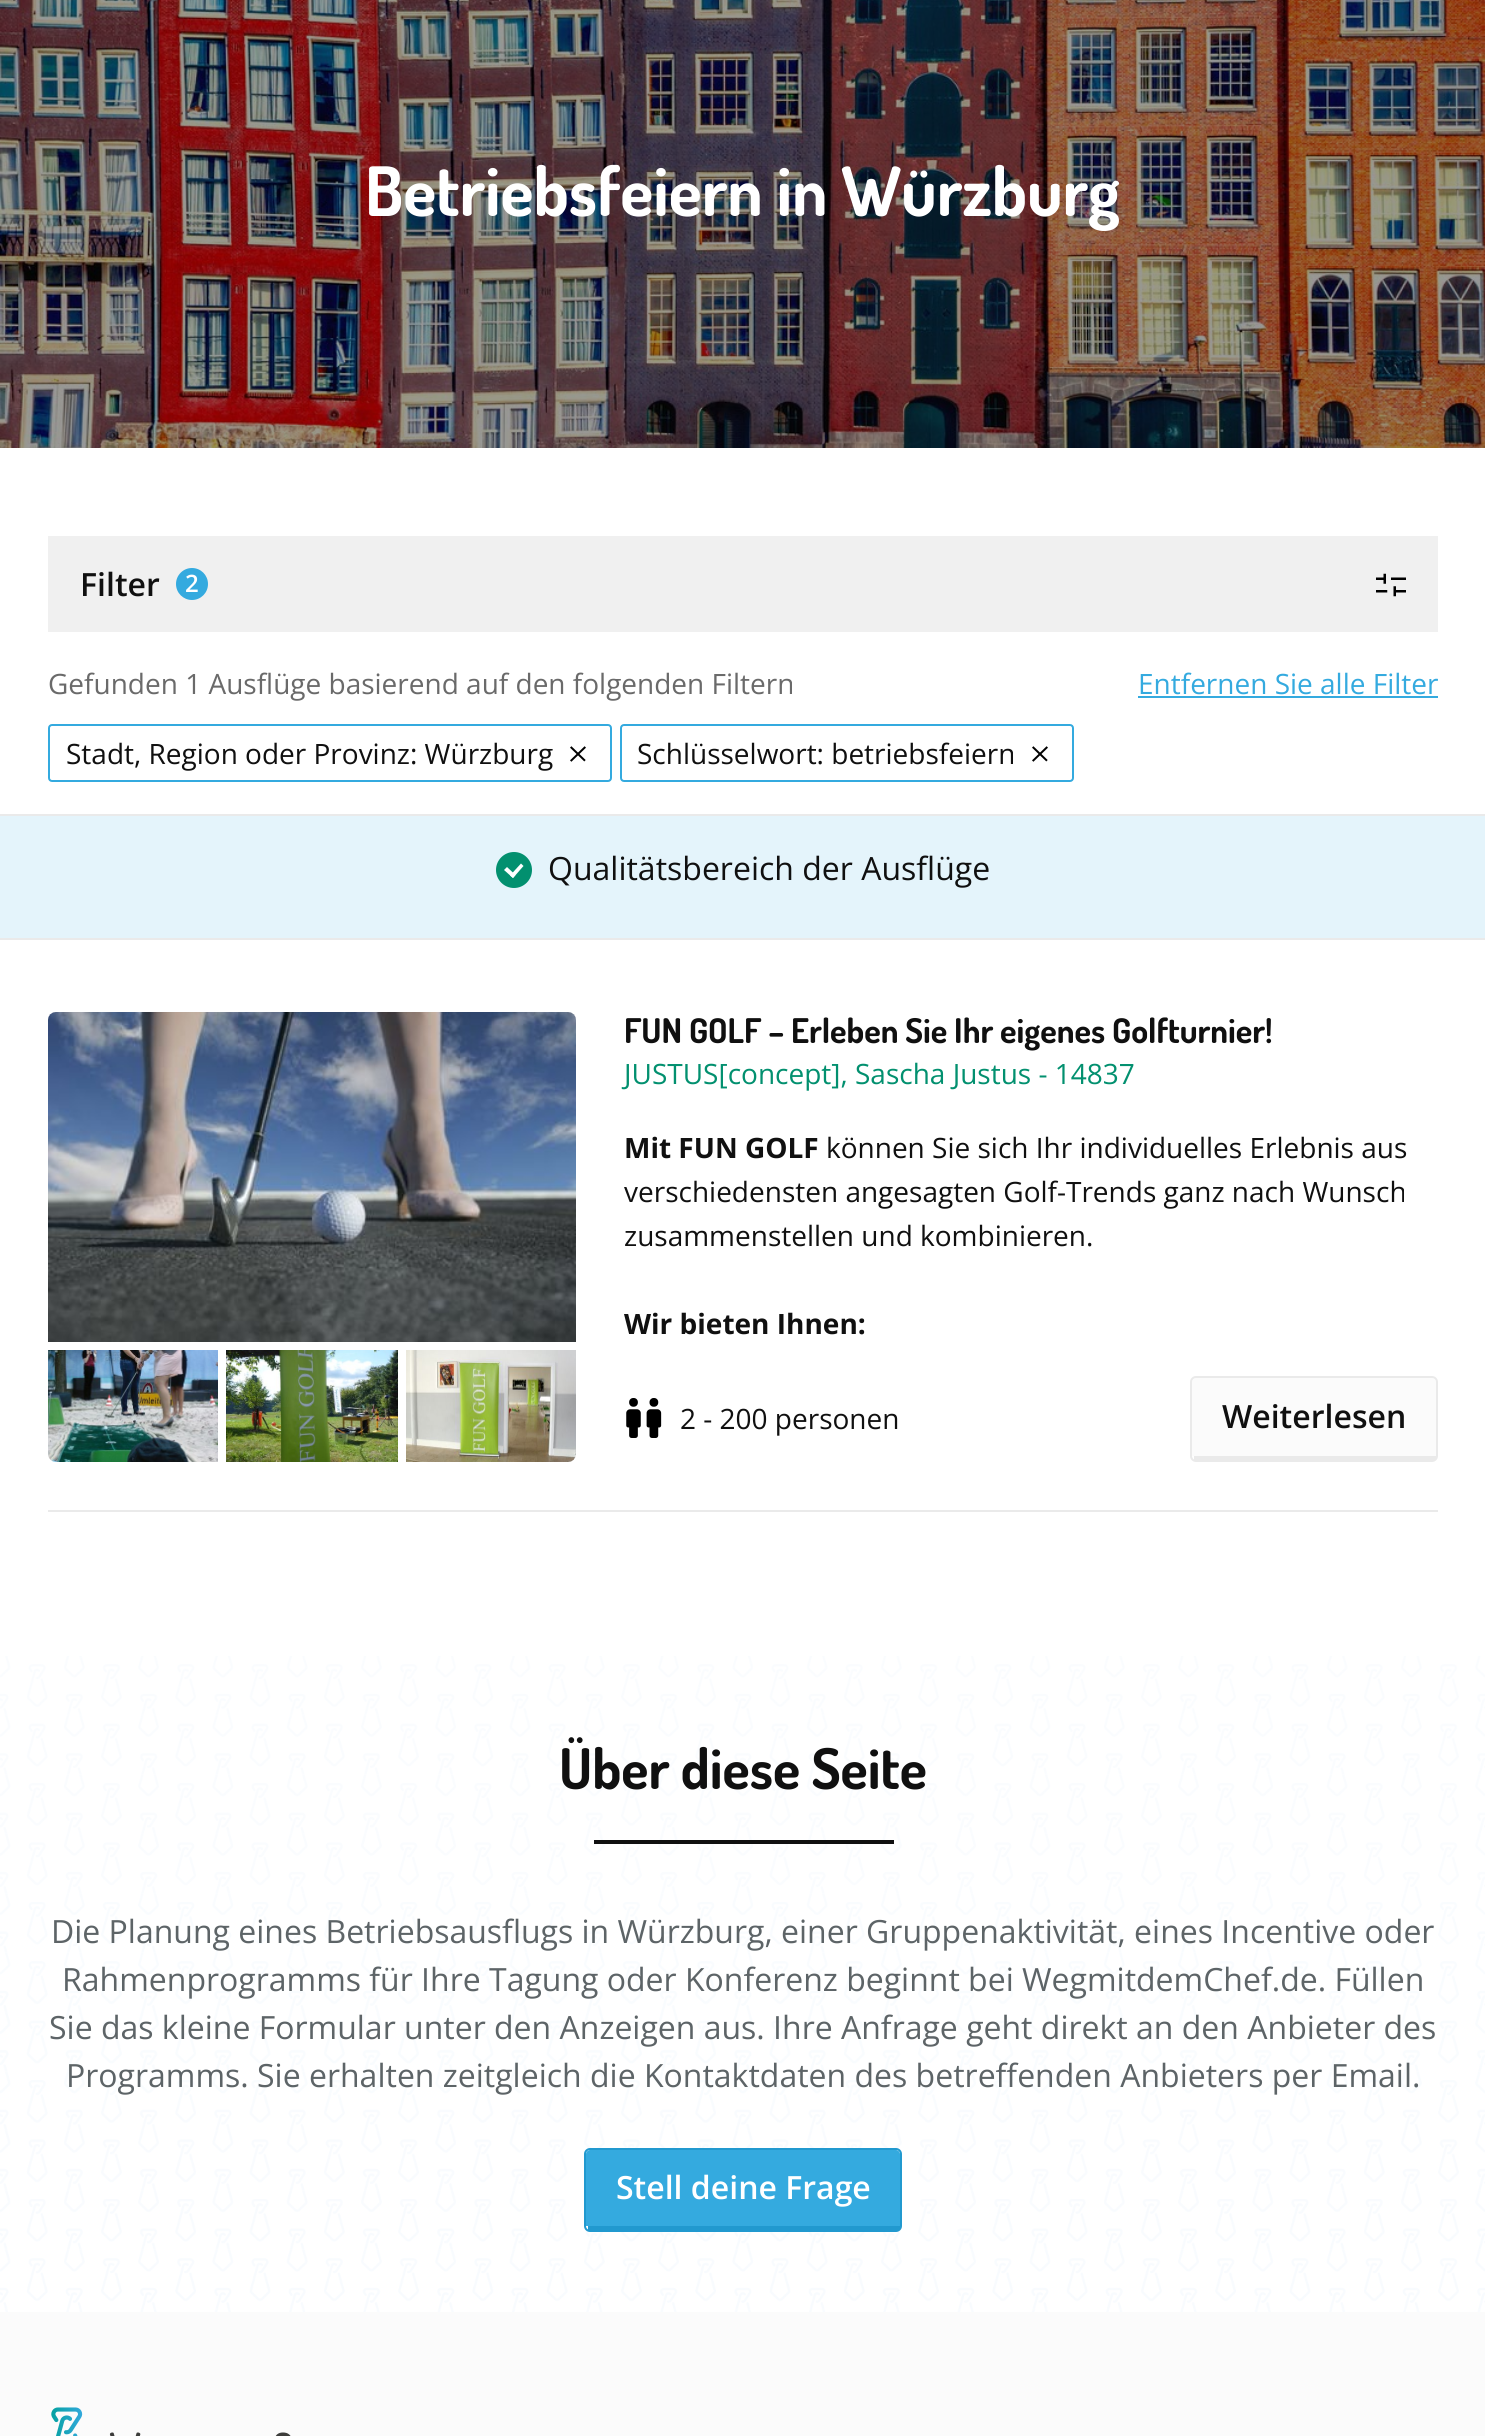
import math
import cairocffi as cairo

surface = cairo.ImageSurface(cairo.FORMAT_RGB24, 1485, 2436)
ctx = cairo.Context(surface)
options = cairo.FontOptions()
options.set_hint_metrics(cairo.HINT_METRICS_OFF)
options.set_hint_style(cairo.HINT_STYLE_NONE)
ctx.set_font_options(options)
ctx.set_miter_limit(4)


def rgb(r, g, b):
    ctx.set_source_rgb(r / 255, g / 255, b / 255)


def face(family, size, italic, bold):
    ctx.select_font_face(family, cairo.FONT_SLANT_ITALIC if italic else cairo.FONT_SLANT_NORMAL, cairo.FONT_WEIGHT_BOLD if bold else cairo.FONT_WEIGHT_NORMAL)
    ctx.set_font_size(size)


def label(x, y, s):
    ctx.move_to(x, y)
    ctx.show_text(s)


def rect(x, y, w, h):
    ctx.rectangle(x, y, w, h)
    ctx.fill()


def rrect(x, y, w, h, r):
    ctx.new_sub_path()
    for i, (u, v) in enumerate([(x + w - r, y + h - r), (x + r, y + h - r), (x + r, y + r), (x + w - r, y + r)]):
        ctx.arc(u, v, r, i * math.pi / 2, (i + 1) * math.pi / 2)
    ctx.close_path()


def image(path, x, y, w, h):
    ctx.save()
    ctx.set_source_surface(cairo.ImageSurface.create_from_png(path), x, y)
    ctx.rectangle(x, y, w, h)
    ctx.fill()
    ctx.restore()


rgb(255, 255, 255)
ctx.paint()
image('image0.png', 0, 0, 1485, 448)
face('Dosis', 68, 0, 1)
rgb(255, 255, 255)
label(365, 216, 'Betriebsfeiern in Würzburg')
rgb(240, 240, 240)
rect(48, 536, 1390, 96)
face('Open Sans SemiBold', 32, 0, 0)
rgb(16, 16, 16)
label(80, 596, 'Filter')
rgb(52, 170, 223)
ctx.new_path()
ctx.arc(192, 584, 16, 0, 2 * math.pi)
ctx.fill()
face('Open Sans SemiBold', 24, 0, 0)
rgb(255, 255, 255)
label(185, 592, '2')
image('image1.png', 1376, 573, 30, 24)
face('Open Sans', 28, 0, 0)
rgb(106, 106, 106)
label(48, 694, 'Gefunden 1 Ausflüge basierend auf den folgenden Filtern')
rgb(52, 170, 223)
label(1138, 694, 'Entfernen Sie alle Filter')
rect(1138, 696, 300, 2)
rrect(49, 725, 562, 56, 3)
ctx.stroke()
rgb(16, 16, 16)
label(66, 764, 'Stadt, Region oder Provinz: Würzburg')
image('image2.png', 570, 746, 16, 16)
rrect(621, 725, 452, 56, 3)
rgb(52, 170, 223)
ctx.stroke()
rgb(16, 16, 16)
label(637, 764, 'Schlüsselwort: betriebsfeiern')
image('image2.png', 1032, 746, 16, 16)
rgb(228, 244, 251)
rect(0, 816, 1485, 122)
rgb(234, 234, 234)
rect(0, 814, 1485, 2)
rect(0, 938, 1485, 2)
rgb(2, 144, 111)
ctx.arc(514, 870, 18, 0, 2 * math.pi)
ctx.fill()
face('Open Sans', 32, 0, 0)
rgb(16, 16, 16)
label(548, 880, 'Qualitätsbereich der Ausflüge')
rgb(255, 255, 255)
ctx.new_path()
ctx.move_to(510, 875.5)
ctx.line_to(521, 863.5)
ctx.line_to(523.5, 866)
ctx.line_to(513, 878)
ctx.close_path()
ctx.fill()
ctx.new_path()
ctx.move_to(504, 870)
ctx.line_to(507, 867)
ctx.line_to(515.5, 875)
ctx.line_to(513, 878)
ctx.close_path()
ctx.fill()
rgb(234, 234, 234)
rect(48, 1510, 1390, 2)
image('image3.png', 48, 1012, 528, 330)
image('image4.png', 48, 1350, 170, 112)
image('image5.png', 226, 1350, 172, 112)
image('image6.png', 406, 1350, 170, 112)
face('Dosis', 34, 0, 1)
rgb(16, 16, 16)
label(624, 1043, 'FUN GOLF – Erleben Sie Ihr eigenes Golfturnier!')
face('Open Sans', 28, 0, 0)
rgb(2, 144, 111)
label(624, 1084, 'JUSTUS[concept], Sascha Justus - 14837')
face('Open Sans', 28, 0, 1)
rgb(16, 16, 16)
label(624, 1158, 'Mit FUN GOLF')
face('Open Sans', 28, 0, 0)
label(826, 1158, 'können Sie sich Ihr individuelles Erlebnis aus')
label(624, 1202, 'verschiedensten angesagten Golf-Trends ganz nach Wunsch')
label(624, 1246, 'zusammenstellen und kombinieren.')
face('Open Sans', 28, 0, 1)
label(624, 1334, 'Wir bieten Ihnen:')
image('image7.png', 626, 1398, 36, 40)
face('Open Sans', 28, 0, 0)
label(680, 1429, '2 - 200 personen')
rgb(251, 251, 251)
ctx.new_path()
ctx.move_to(1196, 1378)
ctx.line_to(1432, 1378)
ctx.curve_to(1434, 1378, 1436, 1380, 1436, 1382)
ctx.line_to(1436, 1456)
ctx.line_to(1192, 1456)
ctx.line_to(1192, 1382)
ctx.curve_to(1192, 1380, 1194, 1378, 1196, 1378)
ctx.close_path()
ctx.fill()
rrect(1191, 1377, 246, 84, 5)
rgb(234, 234, 234)
ctx.stroke()
rect(1194, 1456, 242, 4)
face('Open Sans SemiBold', 32, 0, 0)
rgb(16, 16, 16)
label(1222, 1428, 'Weiterlesen')
image('image8.png', 0, 1656, 1485, 656)
gradient = cairo.LinearGradient(743, 1656, 743, 2312)
gradient.add_color_stop_rgba(0, 1, 1, 1, 0.8)
gradient.add_color_stop_rgba(1, 1, 1, 1, 0.7)
ctx.set_source(gradient)
rect(0, 1656, 1485, 656)
face('Dosis', 56, 0, 1)
rgb(16, 16, 16)
label(559, 1789, 'Über diese Seite')
rect(594, 1840, 300, 4)
face('Open Sans', 32, 0, 0)
rgb(93, 100, 103)
label(51, 1943, 'Die Planung eines Betriebsausflugs in Würzburg, einer Gruppenaktivität, eines Incentive oder')
label(62, 1991, 'Rahmenprogramms für Ihre Tagung oder Konferenz beginnt bei WegmitdemChef.de. Füllen')
label(49, 2039, 'Sie das kleine Formular unter den Anzeigen aus. Ihre Anfrage geht direkt an den Anbieter des')
label(66, 2087, 'Programms. Sie erhalten zeitgleich die Kontaktdaten des betreffenden Anbieters per Email.')
rgb(52, 170, 223)
ctx.new_path()
ctx.move_to(590, 2150)
ctx.line_to(896, 2150)
ctx.curve_to(898, 2150, 900, 2152, 900, 2154)
ctx.line_to(900, 2226)
ctx.line_to(586, 2226)
ctx.line_to(586, 2154)
ctx.curve_to(586, 2152, 588, 2150, 590, 2150)
ctx.close_path()
ctx.fill()
rrect(585, 2149, 316, 82, 5)
rgb(33, 153, 207)
ctx.stroke()
rect(588, 2226, 312, 4)
face('Open Sans SemiBold', 32, 0, 0)
rgb(255, 255, 255)
label(616, 2199, 'Stell deine Frage')
rgb(251, 251, 251)
rect(0, 2312, 1485, 124)
image('image9.png', 51, 2407, 240, 29)
surface.write_to_png('render.png')
